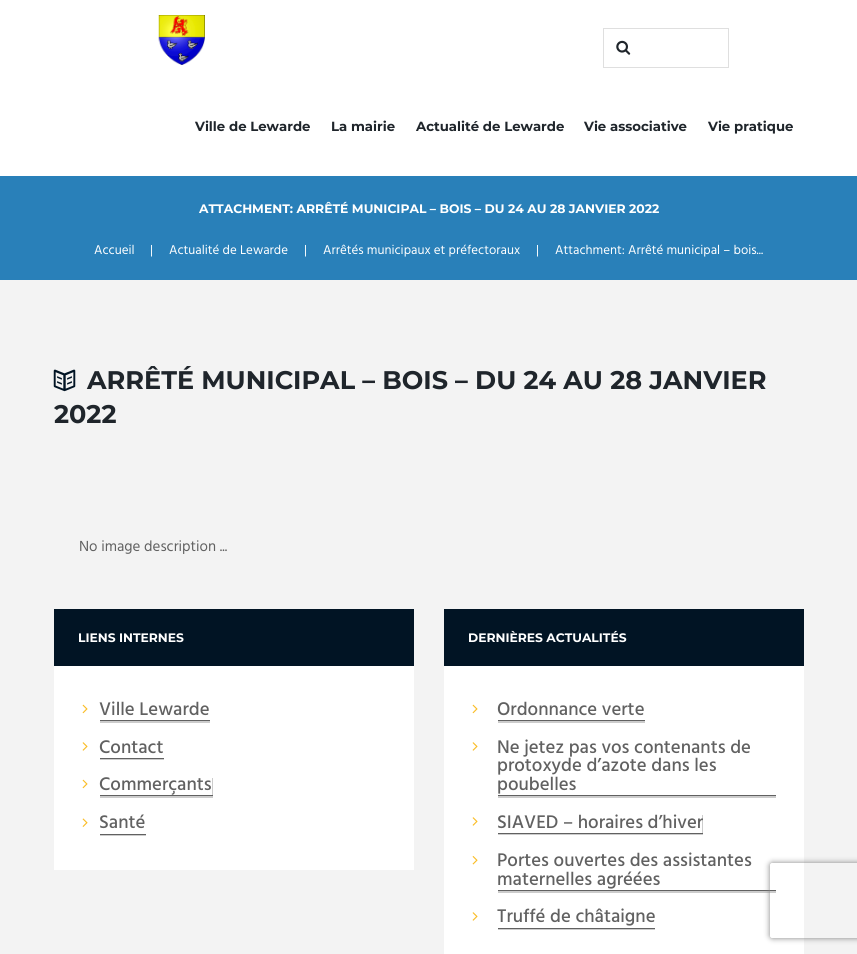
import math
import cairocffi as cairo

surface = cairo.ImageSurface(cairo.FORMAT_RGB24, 857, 954)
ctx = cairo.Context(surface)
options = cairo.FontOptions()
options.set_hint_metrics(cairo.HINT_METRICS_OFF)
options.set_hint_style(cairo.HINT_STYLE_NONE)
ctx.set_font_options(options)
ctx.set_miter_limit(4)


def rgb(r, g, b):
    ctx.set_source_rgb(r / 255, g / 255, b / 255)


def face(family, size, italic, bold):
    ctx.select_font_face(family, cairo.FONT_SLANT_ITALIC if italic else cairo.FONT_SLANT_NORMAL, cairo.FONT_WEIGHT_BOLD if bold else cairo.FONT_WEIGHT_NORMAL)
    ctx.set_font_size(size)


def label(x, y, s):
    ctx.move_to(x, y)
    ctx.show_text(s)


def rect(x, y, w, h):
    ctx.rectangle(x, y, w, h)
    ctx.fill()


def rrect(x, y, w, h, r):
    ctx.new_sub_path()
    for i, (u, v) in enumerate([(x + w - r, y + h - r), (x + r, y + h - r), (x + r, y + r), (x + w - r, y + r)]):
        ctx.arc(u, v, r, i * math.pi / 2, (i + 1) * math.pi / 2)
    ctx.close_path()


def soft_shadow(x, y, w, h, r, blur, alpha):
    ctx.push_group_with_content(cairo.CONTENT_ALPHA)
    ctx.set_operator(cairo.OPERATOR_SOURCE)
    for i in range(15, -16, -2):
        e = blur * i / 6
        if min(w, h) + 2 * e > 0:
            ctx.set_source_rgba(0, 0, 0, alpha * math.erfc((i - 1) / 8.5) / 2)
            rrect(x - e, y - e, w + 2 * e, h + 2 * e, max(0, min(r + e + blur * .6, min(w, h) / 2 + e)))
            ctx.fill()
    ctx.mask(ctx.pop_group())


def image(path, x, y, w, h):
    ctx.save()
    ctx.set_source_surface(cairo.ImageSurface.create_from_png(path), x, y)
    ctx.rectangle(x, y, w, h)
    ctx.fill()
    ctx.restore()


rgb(243, 243, 243)
ctx.paint()
rgb(255, 255, 255)
rect(0, 0, 857, 176)
image('image0.png', 158, 15, 47, 50)
ctx.rectangle(603.5, 28.5, 125, 39)
rgb(223, 223, 223)
ctx.set_line_width(1)
ctx.stroke()
image('image1.png', 616, 40, 15, 15)
face('Montserrat', 13.25, 0, 1)
rgb(31, 37, 43)
label(195, 131, 'Ville de Lewarde')
label(331, 131, 'La mairie')
label(416, 131, 'Actualité de Lewarde')
label(584, 131, 'Vie associative')
label(708, 131, 'Vie pratique')
rgb(41, 128, 185)
rect(0, 176, 857, 104)
face('Montserrat', 12.35, 0, 1)
rgb(255, 255, 255)
label(199, 213, 'ATTACHMENT: ARRÊTÉ MUNICIPAL – BOIS – DU 24 AU 28 JANVIER 2022')
face('Hind', 13, 0, 0)
label(94, 254, 'Accueil')
label(150, 254, '|')
label(169, 254, 'Actualité de Lewarde')
label(304, 254, '|')
label(323, 254, 'Arrêtés municipaux et préfectoraux')
label(536, 254, '|')
label(555, 254, 'Attachment: Arrêté municipal – bois...')
image('image2.png', 53, 369, 23, 23)
face('Montserrat', 25.5, 0, 1)
rgb(31, 37, 43)
label(87, 389, 'ARRÊTÉ MUNICIPAL – BOIS – DU 24 AU 28 JANVIER')
label(54, 423, '2022')
face('Hind', 15, 0, 0)
rgb(97, 97, 97)
label(79, 551, 'No image description ...')
rgb(255, 255, 255)
rect(54, 666, 360, 204)
rgb(1, 20, 36)
rect(54, 609, 360, 57)
face('Montserrat', 12.3, 0, 1)
rgb(255, 255, 255)
label(78, 642, 'LIENS INTERNES')
image('image3.png', 82, 704, 6, 10)
rgb(204, 204, 204)
rect(100, 721, 110, 2)
rgb(97, 97, 97)
rect(100, 720, 110, 1)
face('Hind Medium', 18.75, 0, 0)
label(99, 715, 'Ville Lewarde')
image('image4.png', 82, 742, 6, 9)
rgb(204, 204, 204)
ctx.new_path()
ctx.move_to(100, 759)
ctx.line_to(100, 760)
ctx.line_to(164, 760)
ctx.line_to(164, 740)
ctx.line_to(164, 759)
ctx.close_path()
ctx.fill()
rgb(97, 97, 97)
rect(100, 758, 64, 1)
label(99, 753, 'Contact')
image('image3.png', 82, 779, 6, 10)
rgb(204, 204, 204)
ctx.new_path()
ctx.move_to(100, 796)
ctx.line_to(100, 798)
ctx.line_to(213, 798)
ctx.line_to(213, 778)
ctx.line_to(212, 778)
ctx.line_to(212, 796)
ctx.close_path()
ctx.fill()
rgb(97, 97, 97)
rect(100, 795, 113, 1)
label(99, 790, 'Commerçants')
image('image5.png', 82, 818, 6, 9)
rgb(204, 204, 204)
rect(100, 835, 46, 1)
rgb(97, 97, 97)
rect(100, 834, 46, 1)
label(99, 828, 'Santé')
rgb(255, 255, 255)
rect(444, 666, 360, 288)
rgb(1, 20, 36)
rect(444, 609, 360, 57)
face('Montserrat', 12.3, 0, 1)
rgb(255, 255, 255)
label(468, 642, 'DERNIÈRES ACTUALITÉS')
image('image3.png', 472, 704, 6, 10)
rgb(204, 204, 204)
rect(498, 721, 147, 2)
rgb(97, 97, 97)
rect(498, 720, 147, 1)
face('Hind Medium', 18.75, 0, 0)
label(497, 715, 'Ordonnance verte')
image('image4.png', 472, 742, 6, 9)
rgb(204, 204, 204)
rect(498, 796, 278, 2)
rgb(97, 97, 97)
rect(498, 795, 278, 1)
label(497, 753, 'Ne jetez pas vos contenants de')
label(497, 771, 'protoxyde d’azote dans les')
label(497, 790, 'poubelles')
image('image4.png', 472, 817, 6, 9)
rgb(204, 204, 204)
ctx.new_path()
ctx.move_to(498, 834)
ctx.line_to(498, 835)
ctx.line_to(703, 835)
ctx.line_to(703, 815)
ctx.line_to(702, 815)
ctx.line_to(702, 834)
ctx.close_path()
ctx.fill()
rgb(97, 97, 97)
rect(498, 833, 205, 1)
label(497, 828, 'SIAVED – horaires d’hiver')
image('image6.png', 472, 856, 6, 9)
rgb(204, 204, 204)
rect(498, 891, 278, 2)
rgb(97, 97, 97)
rect(498, 890, 278, 1)
label(497, 866, 'Portes ouvertes des assistantes')
label(497, 885, 'maternelles agréées')
image('image4.png', 472, 912, 6, 9)
rgb(204, 204, 204)
rect(498, 929, 157, 1)
rgb(97, 97, 97)
rect(498, 928, 157, 1)
label(497, 922, 'Truffé de châtaigne')
ctx.save()
ctx.set_fill_rule(cairo.FILL_RULE_EVEN_ODD)
ctx.new_path()
ctx.move_to(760, 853)
ctx.line_to(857, 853)
ctx.line_to(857, 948)
ctx.line_to(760, 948)
ctx.close_path()
ctx.move_to(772.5, 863)
ctx.line_to(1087.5, 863)
ctx.curve_to(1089, 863, 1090, 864, 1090, 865.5)
ctx.line_to(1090, 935.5)
ctx.curve_to(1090, 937, 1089, 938, 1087.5, 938)
ctx.line_to(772.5, 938)
ctx.curve_to(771, 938, 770, 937, 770, 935.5)
ctx.line_to(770, 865.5)
ctx.curve_to(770, 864, 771, 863, 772.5, 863)
ctx.close_path()
ctx.clip()
rgb(128, 128, 128)
soft_shadow(770, 863, 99, 75, 2.5, 3, 1)
ctx.restore()
surface.write_to_png('render.png')
